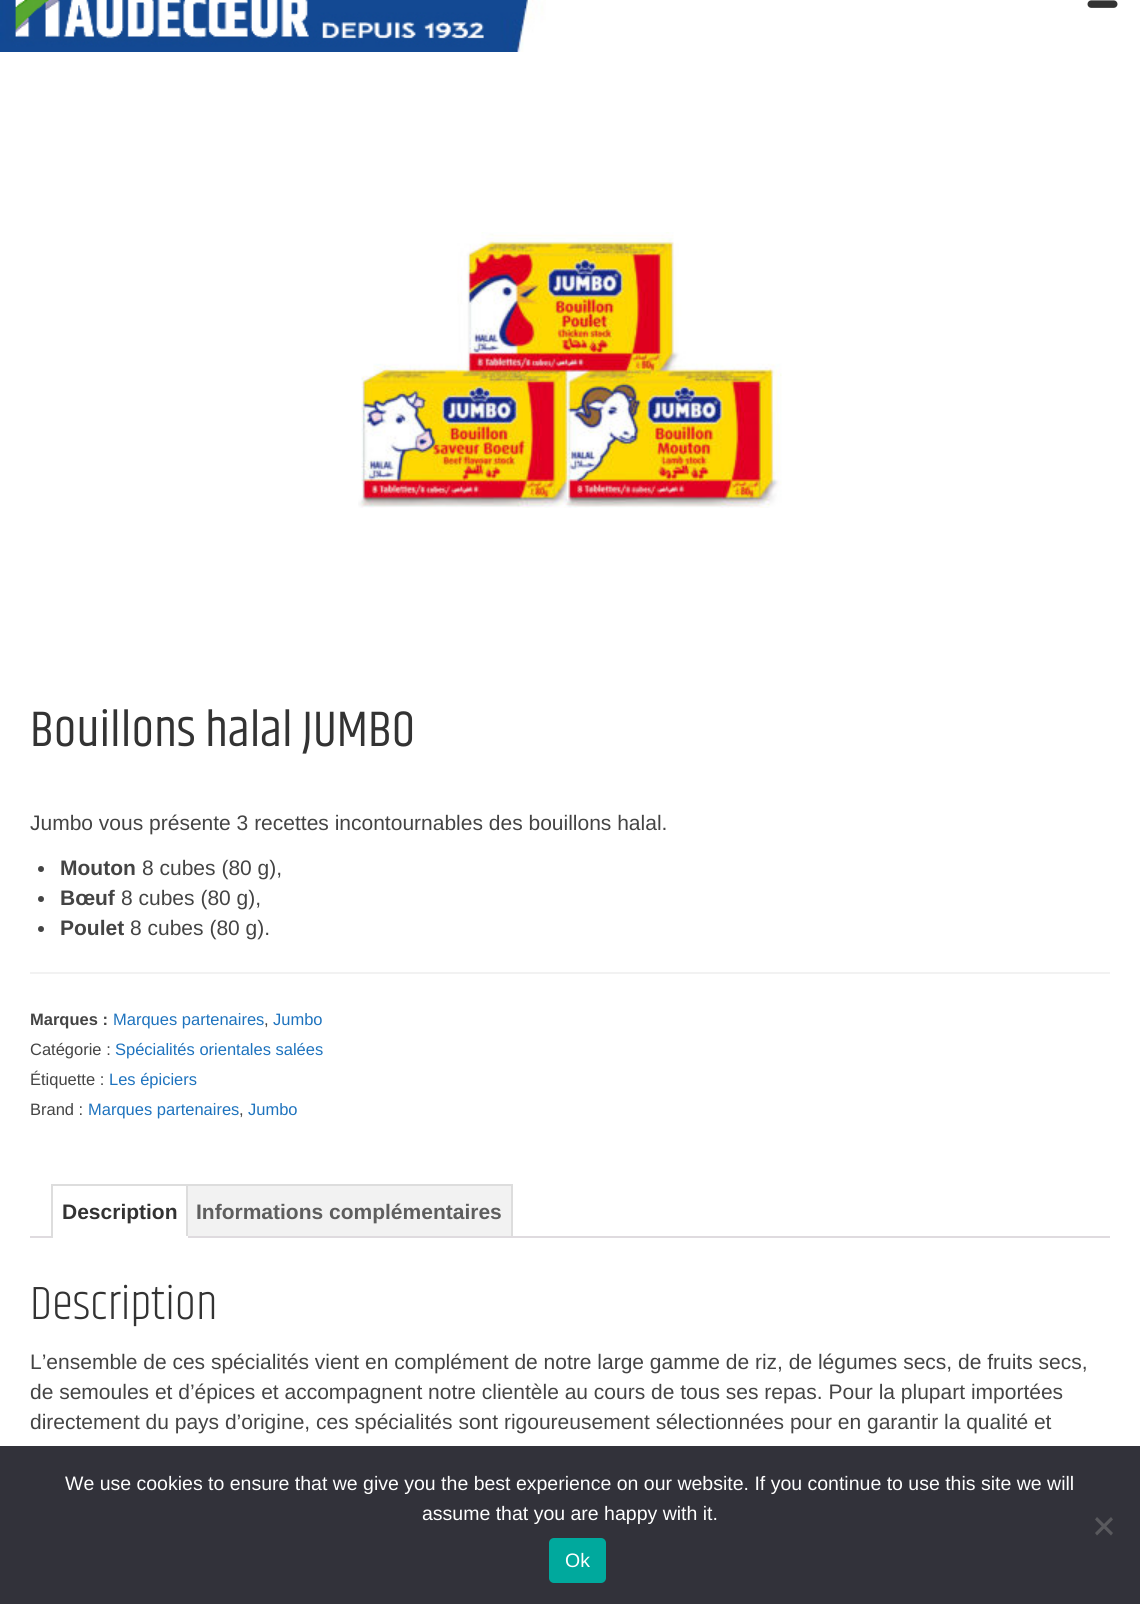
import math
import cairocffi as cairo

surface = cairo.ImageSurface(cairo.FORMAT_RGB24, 1140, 1604)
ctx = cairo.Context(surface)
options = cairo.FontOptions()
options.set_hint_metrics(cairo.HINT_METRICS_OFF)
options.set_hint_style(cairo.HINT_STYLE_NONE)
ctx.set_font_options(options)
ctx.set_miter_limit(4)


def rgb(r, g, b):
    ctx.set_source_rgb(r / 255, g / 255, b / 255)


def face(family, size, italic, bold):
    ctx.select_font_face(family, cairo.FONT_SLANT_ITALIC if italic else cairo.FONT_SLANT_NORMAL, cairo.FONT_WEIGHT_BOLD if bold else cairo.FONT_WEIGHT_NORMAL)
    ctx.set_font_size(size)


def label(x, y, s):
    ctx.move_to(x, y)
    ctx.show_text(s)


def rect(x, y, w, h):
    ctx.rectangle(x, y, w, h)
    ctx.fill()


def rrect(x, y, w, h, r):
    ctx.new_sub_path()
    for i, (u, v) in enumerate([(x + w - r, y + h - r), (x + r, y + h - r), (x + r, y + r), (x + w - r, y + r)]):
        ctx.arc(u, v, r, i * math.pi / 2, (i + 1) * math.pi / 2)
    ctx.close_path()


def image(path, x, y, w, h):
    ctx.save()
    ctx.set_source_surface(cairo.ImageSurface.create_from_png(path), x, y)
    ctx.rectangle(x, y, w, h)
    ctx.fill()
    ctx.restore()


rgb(255, 255, 255)
ctx.paint()
image('image0.png', 0, 0, 546, 52)
image('image1.png', 1087, 0, 31, 8)
image('image2.png', 358, 232, 424, 276)
face('Khand', 51, 0, 0)
rgb(51, 51, 51)
label(30, 746, 'Bouillons halal JUMBO')
face('Liberation Sans', 21, 0, 0)
rgb(68, 68, 68)
label(30, 830, 'Jumbo vous présente 3 recettes incontournables des bouillons halal.')
ctx.new_path()
ctx.arc(41, 869, 3, 0, 2 * math.pi)
ctx.fill()
face('Liberation Sans', 21, 0, 1)
label(60, 875, 'Mouton')
face('Liberation Sans', 21, 0, 0)
label(142, 875, '8 cubes (80 g),')
ctx.new_path()
ctx.arc(41, 899, 3, 0, 2 * math.pi)
ctx.fill()
face('Liberation Sans', 21, 0, 1)
label(60, 905, 'Bœuf')
face('Liberation Sans', 21, 0, 0)
label(121, 905, '8 cubes (80 g),')
ctx.new_path()
ctx.arc(41, 929, 3, 0, 2 * math.pi)
ctx.fill()
face('Liberation Sans', 21, 0, 1)
label(60, 935, 'Poulet')
face('Liberation Sans', 21, 0, 0)
label(130, 935, '8 cubes (80 g).')
rgb(242, 242, 242)
rect(30, 972, 1080, 2)
face('Liberation Sans', 16.5, 0, 1)
rgb(68, 68, 68)
label(30, 1025, 'Marques :')
face('Liberation Sans', 16.5, 0, 0)
rgb(30, 115, 190)
label(113, 1025, 'Marques partenaires')
rgb(68, 68, 68)
label(264, 1025, ',')
rgb(30, 115, 190)
label(273, 1025, 'Jumbo')
rgb(68, 68, 68)
label(30, 1055, 'Catégorie :')
rgb(30, 115, 190)
label(115, 1055, 'Spécialités orientales salées')
rgb(68, 68, 68)
label(30, 1085, 'Étiquette :')
rgb(30, 115, 190)
label(109, 1085, 'Les épiciers')
rgb(68, 68, 68)
label(30, 1115, 'Brand :')
rgb(30, 115, 190)
label(88, 1115, 'Marques partenaires')
rgb(68, 68, 68)
label(239, 1115, ',')
rgb(30, 115, 190)
label(248, 1115, 'Jumbo')
rgb(242, 242, 242)
ctx.rectangle(187, 1185, 325, 52)
ctx.fill_preserve()
rgb(221, 221, 221)
ctx.stroke()
rect(51, 1184, 137, 2)
rgb(223, 219, 223)
rect(30, 1236, 1080, 2)
rgb(255, 255, 255)
rect(51, 1236, 137, 2)
rgb(221, 221, 221)
rect(51, 1184, 2, 54)
face('Liberation Sans', 21, 0, 1)
rgb(51, 51, 51)
label(62, 1219, 'Description')
rgb(94, 94, 94)
label(196, 1219, 'Informations complémentaires')
face('Khand Light', 48, 0, 0)
rgb(51, 51, 51)
label(30, 1319, 'Description')
face('Liberation Sans', 21, 0, 0)
rgb(68, 68, 68)
label(30, 1369, 'L’ensemble de ces spécialités vient en complément de notre large gamme de riz, de légumes secs, de fruits secs,')
label(30, 1399, 'de semoules et d’épices et accompagnent notre clientèle au cours de tous ses repas. Pour la plupart importées')
label(30, 1429, 'directement du pays d’origine, ces spécialités sont rigoureusement sélectionnées pour en garantir la qualité et')
rgb(50, 50, 58)
rect(0, 1446, 1140, 158)
face('Liberation Sans', 19.5, 0, 0)
rgb(255, 255, 255)
label(65, 1490, 'We use cookies to ensure that we give you the best experience on our website. If you continue to use this site we will')
label(422, 1520, 'assume that you are happy with it.')
rgb(89, 89, 93)
ctx.new_path()
ctx.move_to(1111, 1517)
ctx.line_to(1113, 1519.5)
ctx.line_to(1097, 1535.5)
ctx.line_to(1095, 1533)
ctx.close_path()
ctx.fill()
ctx.new_path()
ctx.move_to(1095, 1519.5)
ctx.line_to(1097, 1517)
ctx.line_to(1113, 1533)
ctx.line_to(1111, 1535.5)
ctx.close_path()
ctx.fill()
rgb(0, 169, 157)
rrect(549, 1538, 57, 45, 5)
ctx.fill()
rgb(255, 255, 255)
label(565, 1567, 'Ok')
surface.write_to_png('render.png')
